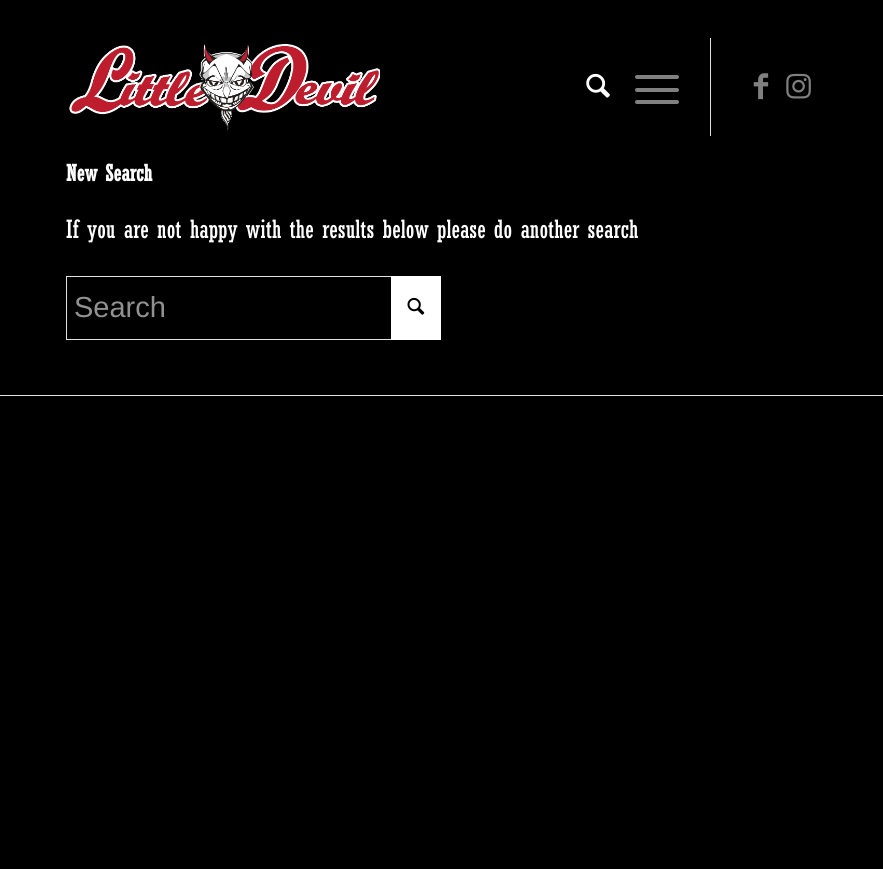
import math
import cairocffi as cairo

surface = cairo.ImageSurface(cairo.FORMAT_RGB24, 883, 869)
ctx = cairo.Context(surface)
options = cairo.FontOptions()
options.set_hint_metrics(cairo.HINT_METRICS_OFF)
options.set_hint_style(cairo.HINT_STYLE_NONE)
ctx.set_font_options(options)
ctx.set_miter_limit(4)


def rgb(r, g, b):
    ctx.set_source_rgb(r / 255, g / 255, b / 255)


def face(family, size, italic, bold):
    ctx.select_font_face(family, cairo.FONT_SLANT_ITALIC if italic else cairo.FONT_SLANT_NORMAL, cairo.FONT_WEIGHT_BOLD if bold else cairo.FONT_WEIGHT_NORMAL)
    ctx.set_font_size(size)


def label(x, y, s):
    ctx.move_to(x, y)
    ctx.show_text(s)


def rect(x, y, w, h):
    ctx.rectangle(x, y, w, h)
    ctx.fill()


def rrect(x, y, w, h, r):
    ctx.new_sub_path()
    for i, (u, v) in enumerate([(x + w - r, y + h - r), (x + r, y + h - r), (x + r, y + r), (x + w - r, y + r)]):
        ctx.arc(u, v, r, i * math.pi / 2, (i + 1) * math.pi / 2)
    ctx.close_path()


def image(path, x, y, w, h):
    ctx.save()
    ctx.set_source_surface(cairo.ImageSurface.create_from_png(path), x, y)
    ctx.rectangle(x, y, w, h)
    ctx.fill()
    ctx.restore()


rgb(0, 0, 0)
ctx.paint()
image('image0.png', 69, 43, 311, 87)
rgb(225, 225, 225)
rect(710, 36, 1, 100)
image('image1.png', 586, 73, 24, 25)
rgb(128, 128, 128)
rrect(635, 88, 44, 4, 2)
ctx.fill()
rrect(635, 75, 44, 4, 2)
ctx.fill()
rrect(635, 100, 44, 4, 2)
ctx.fill()
image('image2.png', 753, 73, 16, 27)
image('image3.png', 786, 73, 25, 26)
rgb(0, 0, 0)
rect(710, 36, 1, 2)
face('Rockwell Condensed', 22.5, 0, 1)
rgb(255, 255, 255)
label(66, 181, 'New Search')
face('Rockwell Condensed', 25, 0, 0)
label(66, 238, 'If you are not happy with the results below please do another search')
ctx.rectangle(66.5, 276.5, 374, 63)
rgb(225, 225, 225)
ctx.set_line_width(1)
ctx.stroke()
face('Liberation Sans', 29, 0, 0)
rgb(145, 145, 145)
label(74, 317, 'Search')
rgb(255, 255, 255)
rect(391, 276, 50, 64)
image('image4.png', 407, 297, 18, 18)
rgb(225, 225, 225)
rect(0, 395, 883, 1)
surface.write_to_png('render.png')
